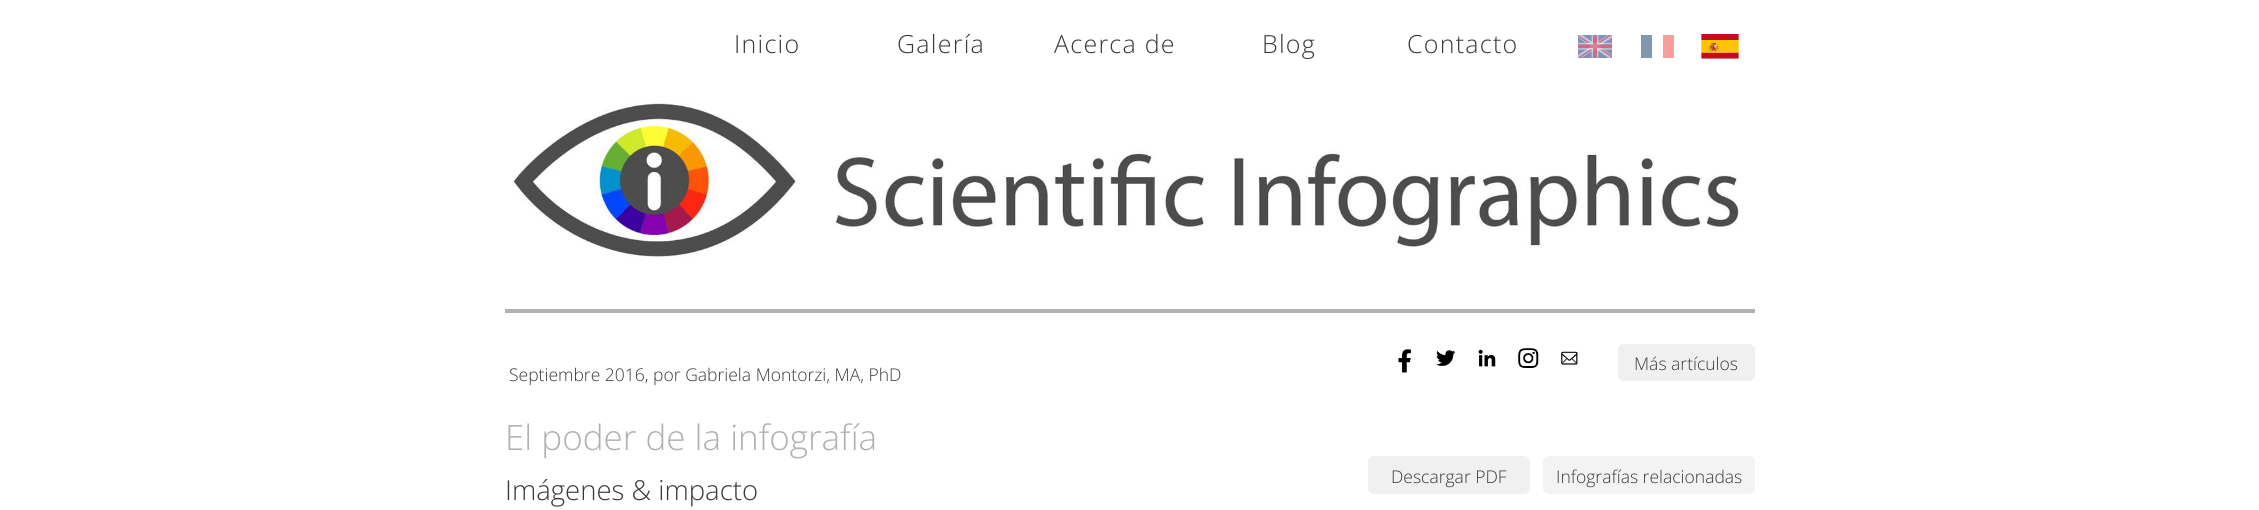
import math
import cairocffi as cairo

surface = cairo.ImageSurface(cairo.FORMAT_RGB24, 2259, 510)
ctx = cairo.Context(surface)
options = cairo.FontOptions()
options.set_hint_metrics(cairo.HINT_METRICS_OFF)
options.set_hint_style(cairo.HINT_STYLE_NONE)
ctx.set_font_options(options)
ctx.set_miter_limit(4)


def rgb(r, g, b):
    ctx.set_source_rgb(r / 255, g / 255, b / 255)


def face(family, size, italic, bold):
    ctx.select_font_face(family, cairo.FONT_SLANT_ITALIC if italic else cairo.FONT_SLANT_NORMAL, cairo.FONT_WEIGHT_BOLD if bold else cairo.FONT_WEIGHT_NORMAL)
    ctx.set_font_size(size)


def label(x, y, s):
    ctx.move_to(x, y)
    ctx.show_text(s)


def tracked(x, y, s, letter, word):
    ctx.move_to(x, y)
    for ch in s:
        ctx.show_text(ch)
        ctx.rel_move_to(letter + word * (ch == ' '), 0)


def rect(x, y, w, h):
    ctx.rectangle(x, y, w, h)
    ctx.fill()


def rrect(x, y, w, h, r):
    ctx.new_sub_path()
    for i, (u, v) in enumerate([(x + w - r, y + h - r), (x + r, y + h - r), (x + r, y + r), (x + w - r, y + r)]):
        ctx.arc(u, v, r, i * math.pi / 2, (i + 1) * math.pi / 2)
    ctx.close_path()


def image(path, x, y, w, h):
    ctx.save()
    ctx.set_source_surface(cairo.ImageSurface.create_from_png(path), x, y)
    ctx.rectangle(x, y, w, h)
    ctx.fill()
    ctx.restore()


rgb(255, 255, 255)
ctx.paint()
face('Open Sans Light', 25, 0, 0)
rgb(58, 58, 58)
tracked(734, 53, 'Inicio', 1.25, 0)
tracked(897, 53, 'Galería', 1.25, 0)
tracked(1054, 53, 'Acerca de', 1.25, 0)
tracked(1262, 53, 'Blog', 1.25, 0)
tracked(1407, 53, 'Contacto', 1.25, 0)
image('image0.png', 1578, 35, 34, 23)
rgb(128, 151, 179)
rect(1641, 35, 11, 23)
rgb(247, 160, 154)
rect(1663, 35, 11, 23)
image('image1.png', 1701, 34, 38, 25)
image('image2.png', 512, 103, 1231, 154)
rgb(177, 177, 177)
rect(505, 309, 1250, 4)
image('image3.png', 1398, 349, 14, 24)
image('image4.png', 1436, 350, 20, 16)
image('image5.png', 1478, 349, 18, 18)
image('image6.png', 1518, 348, 21, 20)
image('image7.png', 1561, 351, 17, 14)
rgb(240, 240, 240)
rrect(1618, 344, 137, 37, 6)
ctx.fill()
face('Open Sans Light', 17.5, 0, 0)
rgb(58, 58, 58)
label(1634, 370, 'Más artículos')
label(509, 381, 'Septiembre 2016, por Gabriela Montorzi, MA, PhD')
face('Open Sans Light', 35, 0, 0)
rgb(177, 177, 177)
label(505, 450, 'El poder de la infografía')
face('Open Sans Light', 27.5, 0, 0)
rgb(58, 58, 58)
label(505, 500, 'Imágenes & impacto')
rgb(240, 240, 240)
rrect(1368, 456, 162, 38, 6)
ctx.fill()
face('Open Sans Light', 17.5, 0, 0)
rgb(58, 58, 58)
label(1391, 483, 'Descargar PDF')
rgb(243, 243, 243)
rrect(1543, 456, 212, 38, 6)
ctx.fill()
rgb(58, 58, 58)
label(1556, 483, 'Infografías relacionadas')
surface.write_to_png('render.png')
